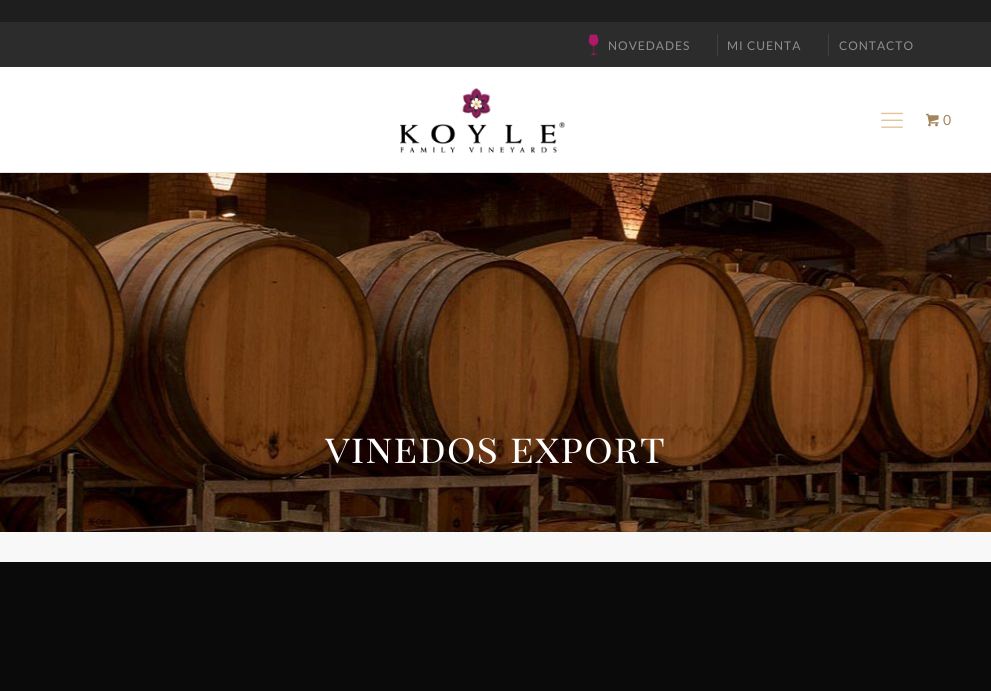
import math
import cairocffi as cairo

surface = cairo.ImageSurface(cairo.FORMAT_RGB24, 991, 691)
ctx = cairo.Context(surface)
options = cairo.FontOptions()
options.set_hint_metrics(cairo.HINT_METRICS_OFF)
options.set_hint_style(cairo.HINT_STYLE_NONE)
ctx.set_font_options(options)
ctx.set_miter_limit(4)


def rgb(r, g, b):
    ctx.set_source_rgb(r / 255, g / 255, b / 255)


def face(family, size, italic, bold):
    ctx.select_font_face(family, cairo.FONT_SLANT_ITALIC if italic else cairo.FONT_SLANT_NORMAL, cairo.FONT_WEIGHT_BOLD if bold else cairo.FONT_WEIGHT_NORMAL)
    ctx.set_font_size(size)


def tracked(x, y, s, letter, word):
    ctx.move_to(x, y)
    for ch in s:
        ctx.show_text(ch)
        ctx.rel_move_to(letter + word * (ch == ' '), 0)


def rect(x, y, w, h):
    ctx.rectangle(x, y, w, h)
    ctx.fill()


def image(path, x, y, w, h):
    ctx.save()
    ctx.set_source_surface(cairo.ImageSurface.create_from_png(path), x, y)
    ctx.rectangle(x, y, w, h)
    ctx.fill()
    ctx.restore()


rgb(31, 30, 30)
ctx.paint()
rgb(248, 248, 248)
rect(0, 532, 991, 30)
image('image0.png', 0, 173, 991, 359)
rgb(44, 44, 44)
rect(0, 22, 991, 45)
image('image1.png', 588, 34, 11, 22)
rgb(65, 65, 65)
rect(717, 34, 1, 22)
face('Lato', 12, 0, 0)
rgb(142, 142, 142)
tracked(608, 50, 'NOVEDADES', 1, 0)
rgb(65, 65, 65)
rect(828, 34, 1, 22)
rgb(142, 142, 142)
tracked(727, 50, 'MI CUENTA', 1, 0)
tracked(839, 50, 'CONTACTO', 1, 0)
rgb(255, 255, 255)
rect(0, 67, 991, 105)
rgb(226, 226, 226)
rect(0, 172, 991, 1)
image('image2.png', 400, 88, 165, 65)
image('image3.png', 881, 112, 22, 16)
image('image4.png', 926, 113, 13, 14)
face('Lato', 14, 0, 0)
rgb(163, 132, 91)
tracked(943, 125, '0', 1, 0)
face('Playfair Display SC', 40, 0, 0)
rgb(255, 255, 255)
tracked(325, 463, 'vinedos export', 1, 0)
rgb(10, 10, 10)
rect(0, 562, 991, 129)
surface.write_to_png('render.png')
